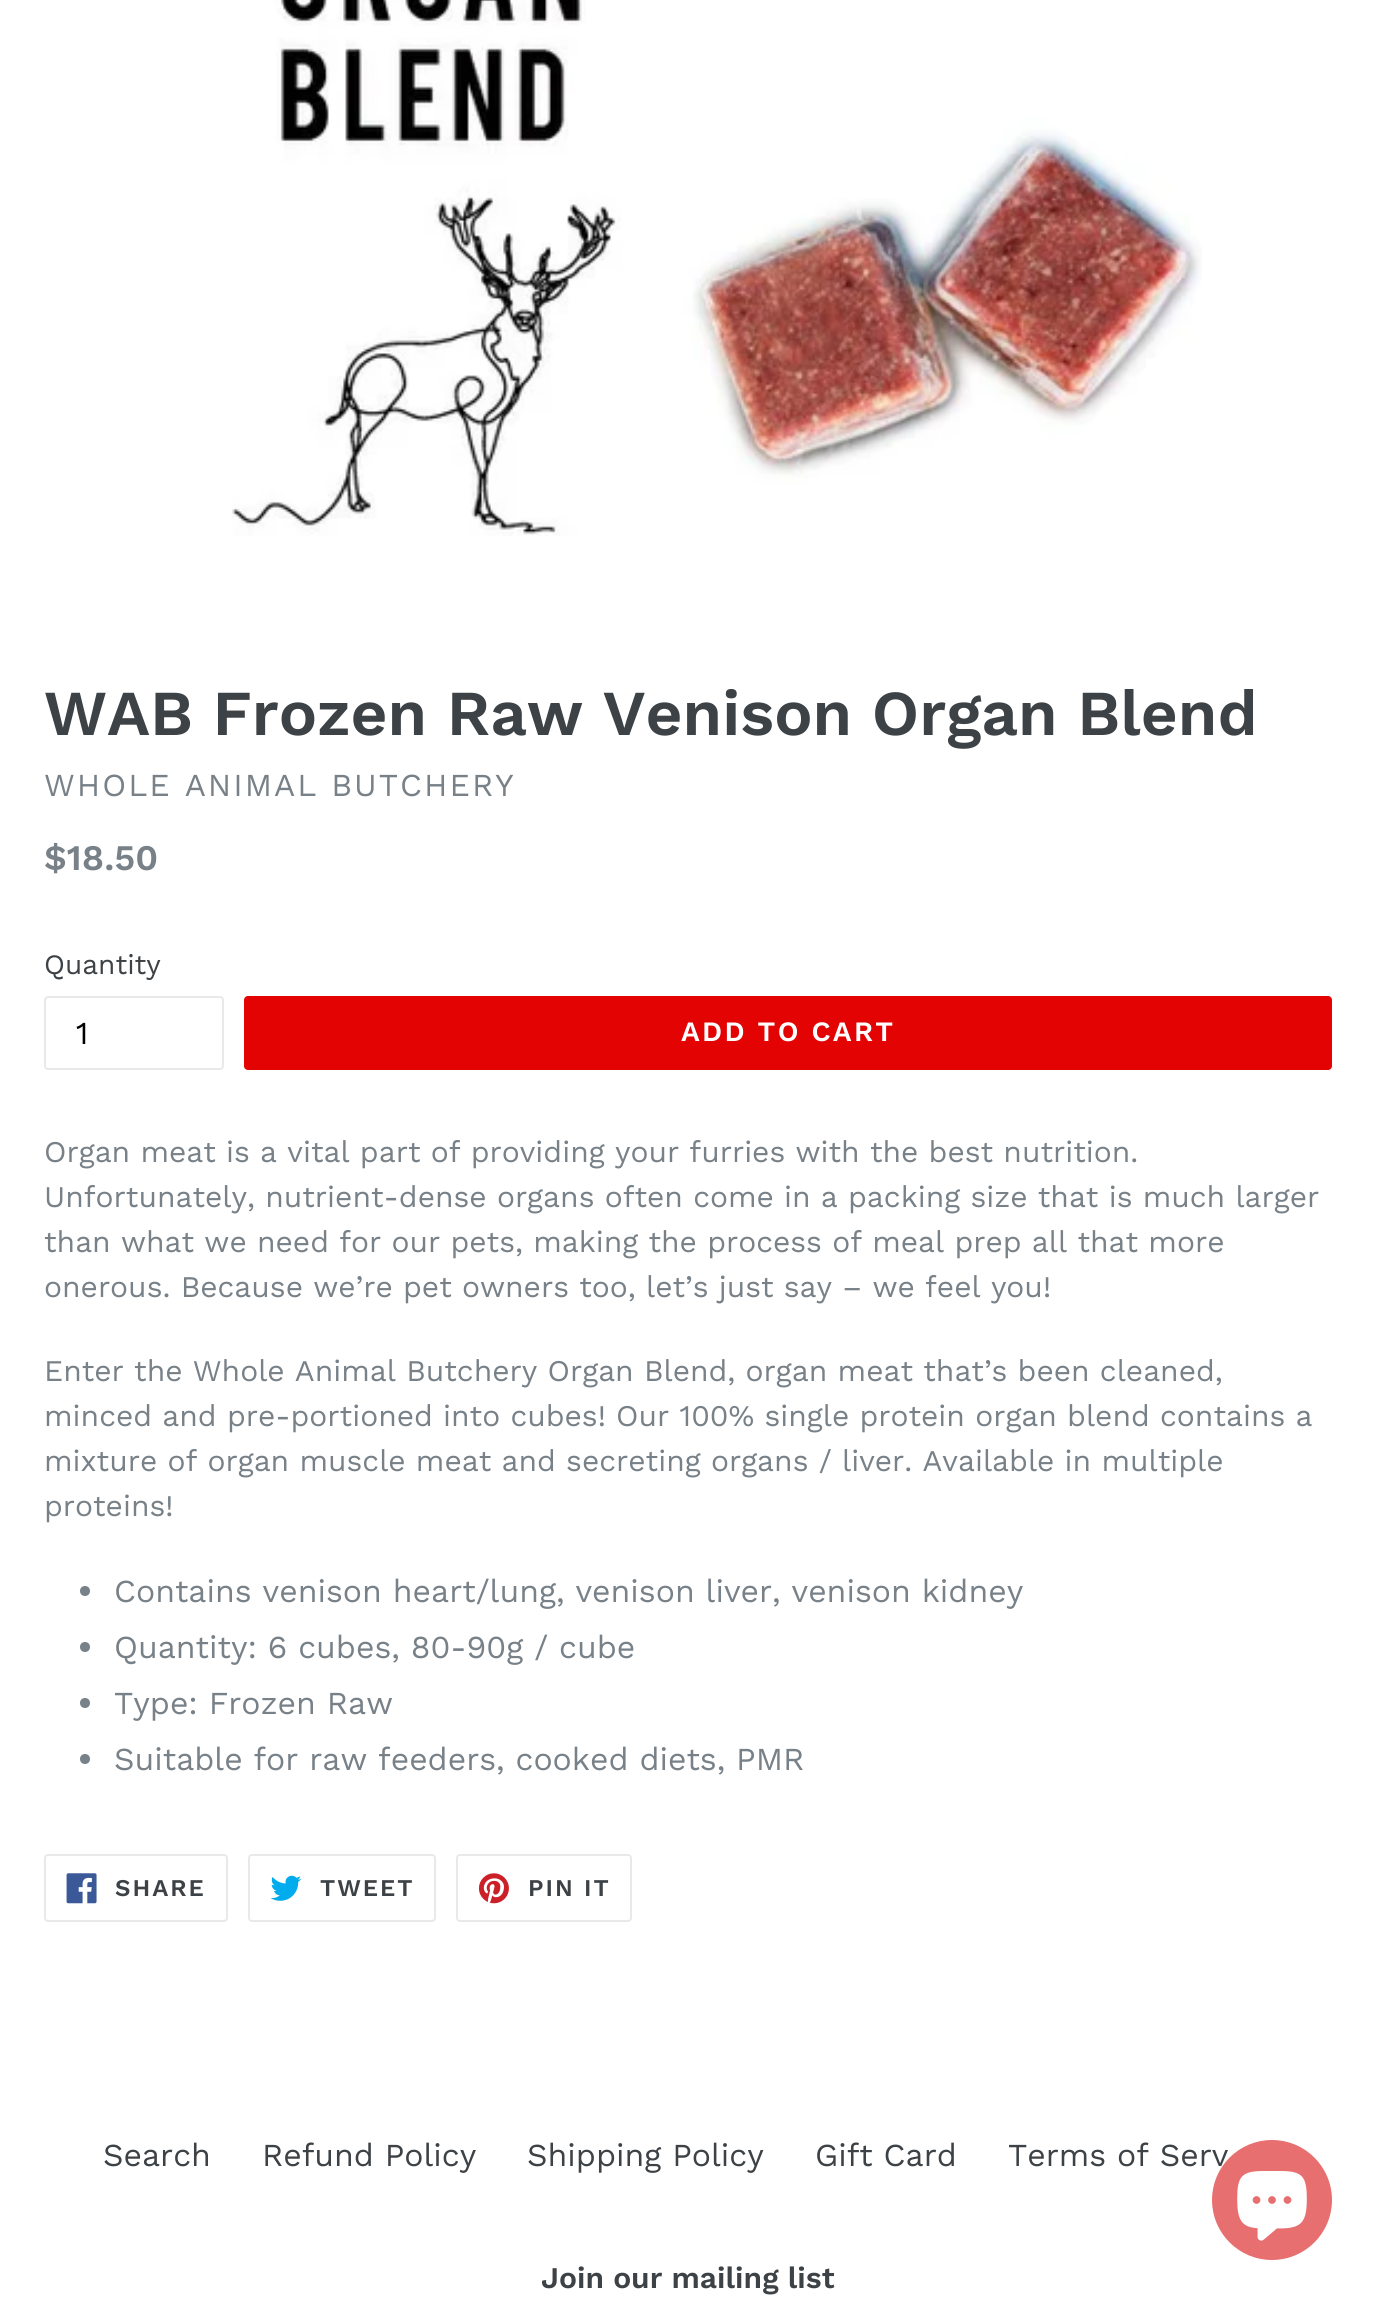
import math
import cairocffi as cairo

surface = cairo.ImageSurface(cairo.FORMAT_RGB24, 1375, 2301)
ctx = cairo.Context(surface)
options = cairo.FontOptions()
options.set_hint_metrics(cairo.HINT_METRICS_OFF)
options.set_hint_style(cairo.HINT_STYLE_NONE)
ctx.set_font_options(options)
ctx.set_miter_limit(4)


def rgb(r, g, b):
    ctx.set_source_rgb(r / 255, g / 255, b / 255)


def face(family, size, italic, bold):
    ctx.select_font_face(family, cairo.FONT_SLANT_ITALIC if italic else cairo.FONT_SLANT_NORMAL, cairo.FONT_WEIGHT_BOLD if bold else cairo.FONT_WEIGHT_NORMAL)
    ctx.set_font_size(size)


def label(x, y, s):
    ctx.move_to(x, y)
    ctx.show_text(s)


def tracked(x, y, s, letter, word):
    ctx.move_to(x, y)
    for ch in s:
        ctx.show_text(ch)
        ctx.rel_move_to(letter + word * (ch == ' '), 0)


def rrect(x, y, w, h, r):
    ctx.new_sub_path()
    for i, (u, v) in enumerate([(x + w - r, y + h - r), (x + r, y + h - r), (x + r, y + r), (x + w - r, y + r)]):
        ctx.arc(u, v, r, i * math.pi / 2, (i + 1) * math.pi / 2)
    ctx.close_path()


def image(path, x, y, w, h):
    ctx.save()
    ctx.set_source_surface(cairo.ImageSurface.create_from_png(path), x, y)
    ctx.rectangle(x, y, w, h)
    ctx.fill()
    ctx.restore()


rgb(255, 255, 255)
ctx.paint()
image('image0.png', 231, 0, 971, 536)
face('Work Sans SemiBold', 64, 0, 0)
rgb(61, 66, 70)
label(44, 735, 'WAB Frozen Raw Venison Organ Blend')
face('Work Sans', 32, 0, 0)
rgb(120, 129, 136)
tracked(44, 796, 'WHOLE ANIMAL BUTCHERY', 2, 0)
face('Work Sans SemiBold', 36, 0, 0)
label(44, 870, '$18.50')
face('Work Sans', 28, 0, 0)
rgb(61, 66, 70)
label(44, 974, 'Quantity')
rrect(45, 997, 178, 72, 3)
rgb(232, 233, 235)
ctx.stroke()
face('Work Sans', 32, 0, 0)
rgb(0, 0, 0)
label(76, 1044, '1')
rgb(227, 3, 3)
rrect(244, 996, 1088, 74, 4)
ctx.fill()
face('Work Sans SemiBold', 28, 0, 0)
rgb(255, 255, 255)
tracked(681, 1041, 'ADD TO CART', 2.25, 0)
face('Work Sans', 30, 0, 0)
rgb(120, 129, 136)
label(44, 1162, 'Organ meat is a vital part of providing your furries with the best nutrition.')
label(44, 1207, 'Unfortunately, nutrient-dense organs often come in a packing size that is much larger')
label(44, 1252, 'than what we need for our pets, making the process of meal prep all that more')
label(44, 1297, 'onerous. Because we’re pet owners too, let’s just say – we feel you!')
label(44, 1381, 'Enter the Whole Animal Butchery Organ Blend, organ meat that’s been cleaned,')
label(44, 1426, 'minced and pre-portioned into cubes! Our 100% single protein organ blend contains a')
label(44, 1471, 'mixture of organ muscle meat and secreting organs / liver. Available in multiple')
label(44, 1516, 'proteins!')
ctx.new_path()
ctx.arc(85, 1591, 5, 0, 2 * math.pi)
ctx.fill()
face('Work Sans', 32, 0, 0)
label(114, 1602, 'Contains venison heart/lung, venison liver, venison kidney')
ctx.new_path()
ctx.arc(85, 1647, 5, 0, 2 * math.pi)
ctx.fill()
label(114, 1658, 'Quantity: 6 cubes, 80-90g / cube')
ctx.new_path()
ctx.arc(85, 1703, 5, 0, 2 * math.pi)
ctx.fill()
label(114, 1714, 'Type: Frozen Raw')
ctx.new_path()
ctx.arc(85, 1759, 5, 0, 2 * math.pi)
ctx.fill()
label(114, 1770, 'Suitable for raw feeders, cooked diets, PMR')
rrect(45, 1855, 182, 66, 3)
rgb(232, 233, 235)
ctx.stroke()
image('image1.png', 66, 1873, 31, 31)
face('Work Sans SemiBold', 24, 0, 0)
rgb(61, 66, 70)
tracked(115, 1896, 'SHARE', 2, 0)
rrect(249, 1855, 186, 66, 3)
rgb(232, 233, 235)
ctx.stroke()
image('image2.png', 270, 1875, 32, 26)
rgb(61, 66, 70)
tracked(320, 1896, 'TWEET', 2, 0)
rrect(457, 1855, 174, 66, 3)
rgb(232, 233, 235)
ctx.stroke()
image('image3.png', 478, 1873, 31, 31)
rgb(61, 66, 70)
tracked(528, 1896, 'PIN IT', 2, 0)
face('Work Sans', 32, 0, 0)
label(103, 2166, 'Search')
label(262, 2166, 'Refund Policy')
label(527, 2166, 'Shipping Policy')
label(815, 2166, 'Gift Card')
label(1008, 2166, 'Terms of Serv')
face('Work Sans SemiBold', 30, 0, 0)
label(541, 2288, 'Join our mailing list')
rgb(231, 111, 111)
ctx.new_path()
ctx.arc(1272, 2200, 60, 0, 2 * math.pi)
ctx.fill()
image('image4.png', 1237, 2171, 70, 70)
surface.write_to_png('render.png')
